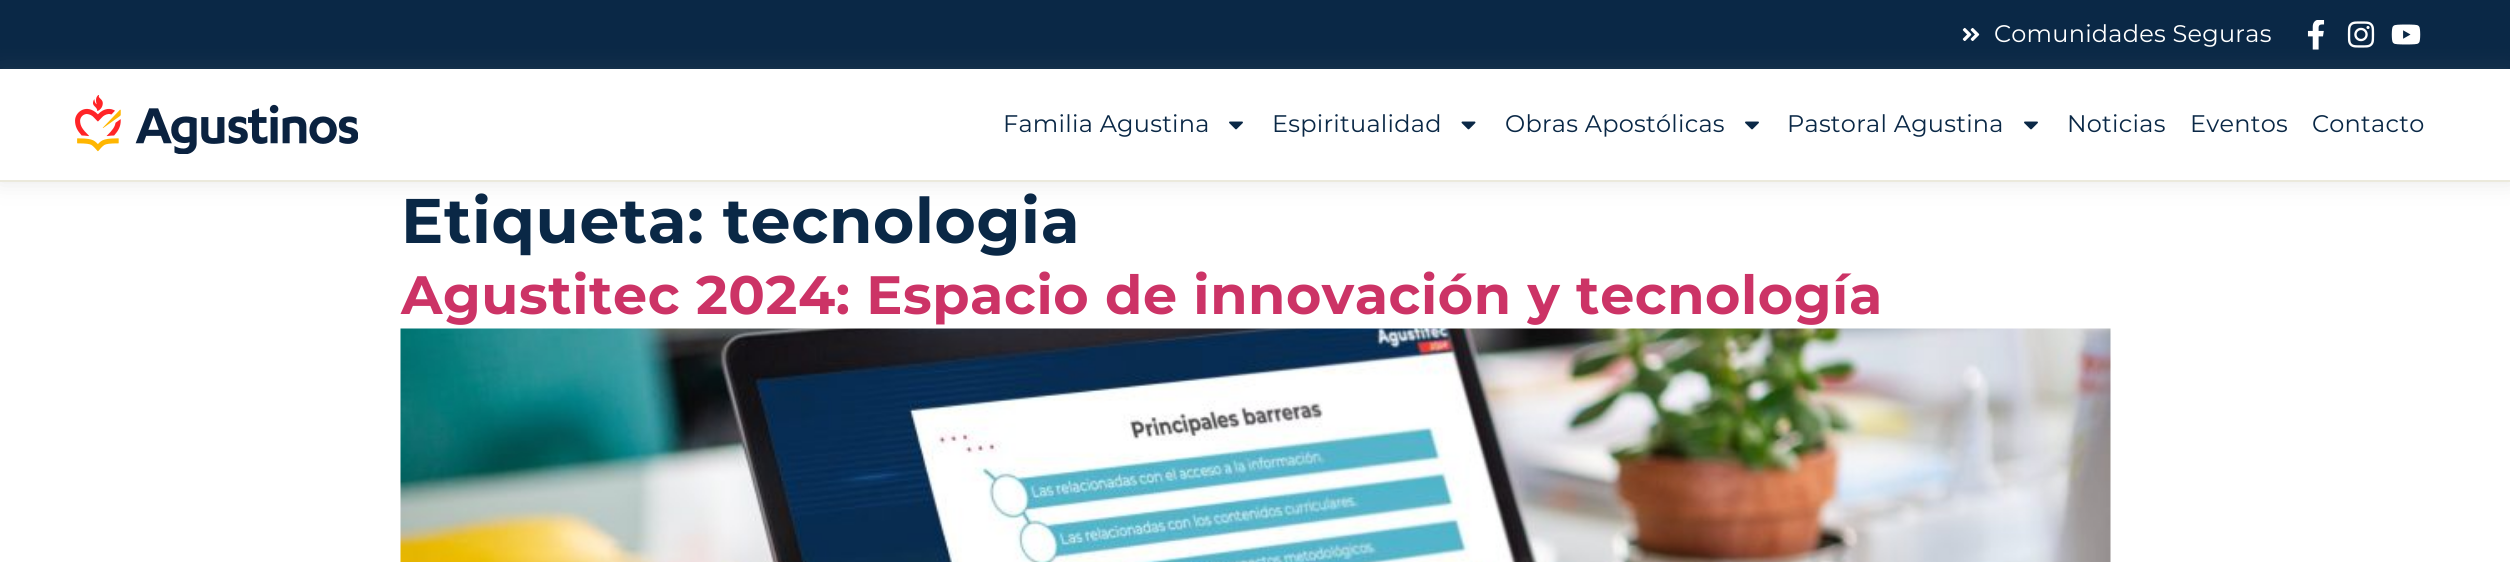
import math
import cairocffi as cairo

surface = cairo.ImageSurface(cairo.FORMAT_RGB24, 2510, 562)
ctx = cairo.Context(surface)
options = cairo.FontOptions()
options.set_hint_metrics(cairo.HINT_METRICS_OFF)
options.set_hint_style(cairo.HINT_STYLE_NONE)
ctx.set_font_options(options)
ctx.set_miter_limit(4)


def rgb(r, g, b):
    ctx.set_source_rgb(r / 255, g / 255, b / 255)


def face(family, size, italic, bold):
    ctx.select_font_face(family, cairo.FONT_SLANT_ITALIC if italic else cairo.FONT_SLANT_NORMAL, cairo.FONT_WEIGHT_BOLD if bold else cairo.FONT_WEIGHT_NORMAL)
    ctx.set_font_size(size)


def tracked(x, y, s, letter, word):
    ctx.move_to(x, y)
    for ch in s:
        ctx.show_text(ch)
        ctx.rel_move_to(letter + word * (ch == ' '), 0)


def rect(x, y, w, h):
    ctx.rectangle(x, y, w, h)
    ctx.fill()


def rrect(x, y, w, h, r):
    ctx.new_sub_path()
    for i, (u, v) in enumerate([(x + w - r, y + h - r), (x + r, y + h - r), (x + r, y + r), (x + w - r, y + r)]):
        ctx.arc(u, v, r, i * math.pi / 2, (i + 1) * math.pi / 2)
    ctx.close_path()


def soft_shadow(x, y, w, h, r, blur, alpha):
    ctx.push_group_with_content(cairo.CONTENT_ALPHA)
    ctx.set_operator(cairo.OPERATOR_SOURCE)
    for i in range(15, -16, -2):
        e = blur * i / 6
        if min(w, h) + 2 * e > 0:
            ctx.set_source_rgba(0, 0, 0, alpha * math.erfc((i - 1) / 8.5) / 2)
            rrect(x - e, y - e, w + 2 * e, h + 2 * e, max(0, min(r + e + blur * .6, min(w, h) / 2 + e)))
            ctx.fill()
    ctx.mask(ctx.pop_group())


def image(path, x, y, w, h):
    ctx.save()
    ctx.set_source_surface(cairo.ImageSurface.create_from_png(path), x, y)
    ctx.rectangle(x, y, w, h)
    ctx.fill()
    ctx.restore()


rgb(255, 255, 255)
ctx.paint()
rgb(10, 40, 70)
rect(0, 0, 2510, 69)
image('image0.png', 1962, 27, 18, 14)
face('Montserrat', 24, 0, 0)
rgb(255, 255, 255)
tracked(1994, 42, 'Comunidades Seguras', 0.25, 0)
image('image1.png', 2307, 20, 18, 30)
image('image2.png', 2347, 21, 28, 27)
image('image3.png', 2391, 24, 30, 21)
ctx.save()
ctx.set_fill_rule(cairo.FILL_RULE_EVEN_ODD)
ctx.new_path()
ctx.move_to(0, 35)
ctx.line_to(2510, 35)
ctx.line_to(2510, 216)
ctx.line_to(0, 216)
ctx.close_path()
ctx.move_to(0, 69)
ctx.line_to(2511, 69)
ctx.line_to(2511, 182)
ctx.line_to(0, 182)
ctx.close_path()
ctx.clip()
rgb(124, 124, 124)
soft_shadow(0, 69, 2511, 113, 0, 11, 0.19)
ctx.restore()
rgb(235, 233, 220)
rect(0, 180, 2510, 2)
image('image4.png', 75, 95, 283, 59)
rgb(10, 40, 70)
tracked(1003, 132, 'Familia Agustina', 0.25, 0)
image('image5.png', 1229, 121, 14, 9)
tracked(1272, 132, 'Espiritualidad', 0.25, 0)
image('image6.png', 1461, 121, 15, 9)
tracked(1505, 132, 'Obras Apostólicas', 0.25, 0)
image('image5.png', 1745, 121, 14, 9)
tracked(1787, 132, 'Pastoral Agustina', 0.25, 0)
image('image5.png', 2024, 121, 14, 9)
tracked(2067, 132, 'Noticias', 0.25, 0)
tracked(2190, 132, 'Eventos', 0.25, 0)
tracked(2312, 132, 'Contacto', 0.25, 0)
face('Montserrat', 63, 0, 1)
tracked(401, 243, 'Etiqueta: tecnologia', 0.6, 0)
face('Montserrat', 54, 0, 1)
rgb(204, 51, 102)
tracked(401, 314, 'Agustitec 2024: Espacio de innovación y tecnología', 0.55, 0)
image('image7.png', 400, 328, 1711, 234)
surface.write_to_png('render.png')
